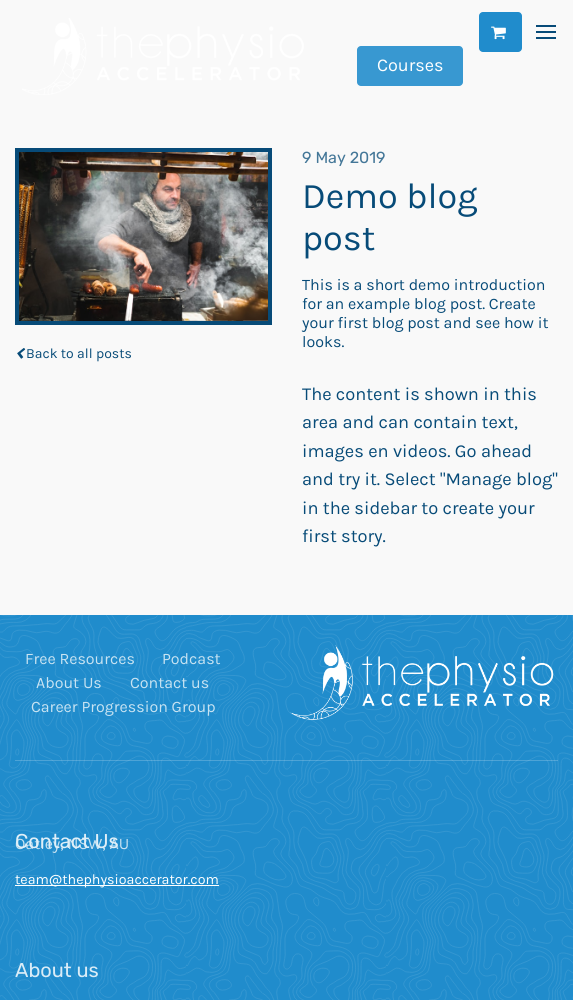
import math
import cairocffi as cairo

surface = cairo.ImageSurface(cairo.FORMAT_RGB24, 573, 1000)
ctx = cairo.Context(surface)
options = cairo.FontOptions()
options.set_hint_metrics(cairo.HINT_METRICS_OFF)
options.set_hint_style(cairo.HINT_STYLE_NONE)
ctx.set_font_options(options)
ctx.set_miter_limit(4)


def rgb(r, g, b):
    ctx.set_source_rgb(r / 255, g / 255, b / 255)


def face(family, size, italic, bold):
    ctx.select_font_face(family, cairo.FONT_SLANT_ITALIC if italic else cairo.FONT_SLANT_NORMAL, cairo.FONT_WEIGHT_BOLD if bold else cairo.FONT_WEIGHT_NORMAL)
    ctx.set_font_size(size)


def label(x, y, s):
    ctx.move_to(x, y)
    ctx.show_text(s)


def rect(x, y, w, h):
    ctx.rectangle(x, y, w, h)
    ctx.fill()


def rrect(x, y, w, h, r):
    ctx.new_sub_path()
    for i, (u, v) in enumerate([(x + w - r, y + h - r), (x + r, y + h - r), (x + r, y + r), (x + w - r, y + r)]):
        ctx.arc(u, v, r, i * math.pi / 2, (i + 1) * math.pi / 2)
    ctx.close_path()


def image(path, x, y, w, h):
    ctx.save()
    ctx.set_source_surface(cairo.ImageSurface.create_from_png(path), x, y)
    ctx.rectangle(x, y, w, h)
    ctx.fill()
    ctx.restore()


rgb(249, 249, 249)
ctx.paint()
image('image0.png', 22, 18, 282, 77)
rgb(7, 75, 120)
rect(536, 25, 20, 2)
rect(536, 31, 20, 2)
rect(536, 37, 20, 2)
rgb(32, 140, 204)
rrect(479, 12, 43, 40, 4)
ctx.fill()
image('image1.png', 491, 26, 15, 14)
rgb(56, 152, 209)
rrect(357, 46, 106, 40, 4)
ctx.fill()
face('Karla', 18, 0, 0)
rgb(255, 255, 255)
label(377, 71, 'Courses')
image('image2.png', 19, 152, 249, 169)
ctx.rectangle(17, 150, 253, 173)
rgb(7, 75, 120)
ctx.set_line_width(4)
ctx.stroke()
image('image3.png', 17, 348, 9, 11)
face('Karla', 14, 0, 0)
label(26, 358, 'Back to all posts')
face('Rubik', 16, 0, 0)
rgb(68, 119, 152)
label(302, 163, '9 May 2019')
face('Karla', 36, 0, 0)
rgb(7, 75, 120)
label(302, 208, 'Demo blog')
label(302, 250, 'post')
face('Karla', 16, 0, 0)
label(302, 290, 'This is a short demo introduction')
label(302, 309, 'for an example blog post. Create')
label(302, 328, 'your first blog post and see how it')
label(302, 347, 'looks.')
face('Karla', 18.25, 0, 0)
label(302, 400, 'The content is shown in this')
label(302, 428, 'area and can contain text,')
label(302, 457, 'images en videos. Go ahead')
label(302, 485, 'and try it. Select "Manage blog"')
label(302, 514, 'in the sidebar to create your')
label(302, 542, 'first story.')
rgb(32, 140, 204)
rect(0, 615, 573, 385)
image('image4.png', 0, 615, 573, 385)
face('Karla', 16, 0, 0)
rgb(200, 227, 242)
label(25, 664, 'Free Resources')
label(162, 664, 'Podcast')
label(36, 688, 'About Us')
label(130, 688, 'Contact us')
label(31, 712, 'Career Progression Group')
image('image5.png', 290, 645, 264, 75)
ctx.set_source_rgba(1, 1, 1, 0.2)
rect(15, 760, 543, 1)
rgb(200, 227, 242)
label(15, 849, 'Oatley, NSW, AU')
face('Rubik', 20, 0, 0)
rgb(224, 239, 248)
label(15, 848, 'Contact Us')
rgb(255, 255, 255)
rect(15, 885, 204, 1)
face('Karla', 14.25, 0, 0)
label(15, 884, 'team@thephysioaccerator.com')
face('Rubik', 20, 0, 0)
rgb(218, 236, 247)
label(15, 977, 'About us')
surface.write_to_png('render.png')
